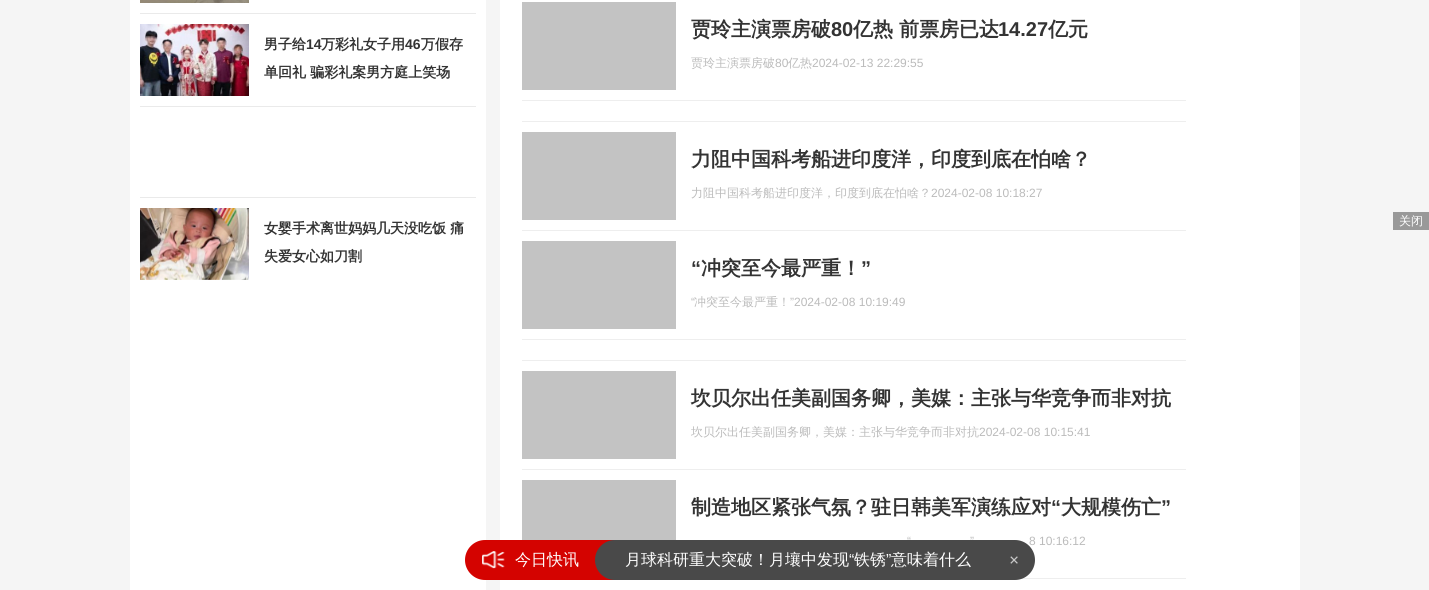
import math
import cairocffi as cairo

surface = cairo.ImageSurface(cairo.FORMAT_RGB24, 1429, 590)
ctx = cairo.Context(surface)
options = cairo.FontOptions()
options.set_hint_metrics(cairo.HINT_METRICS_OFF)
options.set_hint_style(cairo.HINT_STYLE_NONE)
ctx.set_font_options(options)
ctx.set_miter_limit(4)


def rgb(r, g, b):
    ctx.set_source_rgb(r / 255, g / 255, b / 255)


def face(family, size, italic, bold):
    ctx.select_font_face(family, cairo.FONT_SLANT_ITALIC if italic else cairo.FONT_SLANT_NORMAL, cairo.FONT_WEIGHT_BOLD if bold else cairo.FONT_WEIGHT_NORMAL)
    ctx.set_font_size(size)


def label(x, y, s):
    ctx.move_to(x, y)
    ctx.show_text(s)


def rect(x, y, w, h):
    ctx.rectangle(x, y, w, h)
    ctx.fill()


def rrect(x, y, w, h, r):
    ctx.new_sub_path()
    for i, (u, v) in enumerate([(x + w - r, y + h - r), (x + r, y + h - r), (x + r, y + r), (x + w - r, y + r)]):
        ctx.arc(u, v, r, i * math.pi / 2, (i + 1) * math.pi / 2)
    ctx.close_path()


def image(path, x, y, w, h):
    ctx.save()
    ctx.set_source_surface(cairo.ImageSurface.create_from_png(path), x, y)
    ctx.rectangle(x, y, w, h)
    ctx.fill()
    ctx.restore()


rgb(245, 245, 245)
ctx.paint()
rgb(255, 255, 255)
rect(130, 0, 356, 590)
rgb(234, 234, 234)
rect(140, 13, 336, 1)
image('image0.png', 140, 0, 109, 3)
rect(140, 106, 336, 1)
image('image1.png', 140, 24, 109, 72)
face('WenQuanYi Zen Hei', 14, 0, 1)
rgb(51, 51, 51)
label(264, 49, '男子给')
face('Liberation Sans', 14, 0, 1)
label(306, 49, '14')
face('WenQuanYi Zen Hei', 14, 0, 1)
label(321, 49, '万彩礼女子用')
face('Liberation Sans', 14, 0, 1)
label(405, 49, '46')
face('WenQuanYi Zen Hei', 14, 0, 1)
label(421, 49, '万假存')
label(264, 77, '单回礼 骗彩礼案男方庭上笑场')
rgb(234, 234, 234)
rect(140, 197, 336, 1)
image('image2.png', 140, 208, 109, 72)
rgb(51, 51, 51)
label(264, 233, '女婴手术离世妈妈几天没吃饭 痛')
label(264, 261, '失爱女心如刀割')
rgb(255, 255, 255)
rect(500, 0, 800, 590)
rgb(238, 238, 238)
rect(522, 100, 664, 1)
rgb(195, 195, 195)
rect(522, 2, 154, 88)
face('WenQuanYi Zen Hei', 20, 0, 1)
rgb(51, 51, 51)
label(691, 36, '贾玲主演票房破')
face('Liberation Sans', 20, 0, 1)
label(831, 36, '80')
face('WenQuanYi Zen Hei', 20, 0, 1)
label(853, 36, '亿热 前票房已达')
face('Liberation Sans', 20, 0, 1)
label(998, 36, '14.27')
face('WenQuanYi Zen Hei', 20, 0, 1)
label(1048, 36, '亿元')
face('WenQuanYi Zen Hei Medium', 12, 0, 0)
rgb(187, 187, 187)
label(691, 67, '贾玲主演票房破')
face('Liberation Sans', 12, 0, 0)
label(775, 67, '80')
face('WenQuanYi Zen Hei Medium', 12, 0, 0)
label(788, 67, '亿热')
face('Liberation Sans', 12, 0, 0)
label(812, 67, '2024-02-13 22:29:55')
rgb(238, 238, 238)
rect(522, 121, 664, 1)
rect(522, 230, 664, 1)
rgb(195, 195, 195)
rect(522, 132, 154, 88)
face('WenQuanYi Zen Hei', 20, 0, 1)
rgb(51, 51, 51)
label(691, 166, '力阻中国科考船进印度洋，印度到底在怕啥？')
face('WenQuanYi Zen Hei Medium', 12, 0, 0)
rgb(187, 187, 187)
label(691, 197, '力阻中国科考船进印度洋，印度到底在怕啥？')
face('Liberation Sans', 12, 0, 0)
label(931, 197, '2024-02-08 10:18:27')
rgb(238, 238, 238)
rect(522, 339, 664, 1)
rgb(195, 195, 195)
rect(522, 241, 154, 88)
face('Liberation Sans', 20, 0, 1)
rgb(51, 51, 51)
label(691, 275, '“')
face('WenQuanYi Zen Hei', 20, 0, 1)
label(701, 275, '冲突至今最严重！')
face('Liberation Sans', 20, 0, 1)
label(861, 275, '”')
face('Liberation Sans', 12, 0, 0)
rgb(187, 187, 187)
label(691, 306, '“')
face('WenQuanYi Zen Hei Medium', 12, 0, 0)
label(694, 306, '冲突至今最严重！')
face('Liberation Sans', 12, 0, 0)
label(790, 306, '”2024-02-08 10:19:49')
rgb(238, 238, 238)
rect(522, 360, 664, 1)
rect(522, 469, 664, 1)
rgb(195, 195, 195)
rect(522, 371, 154, 88)
face('WenQuanYi Zen Hei', 20, 0, 1)
rgb(51, 51, 51)
label(691, 405, '坎贝尔出任美副国务卿，美媒：主张与华竞争而非对抗')
face('WenQuanYi Zen Hei Medium', 12, 0, 0)
rgb(187, 187, 187)
label(691, 436, '坎贝尔出任美副国务卿，美媒：主张与华竞争而非对抗')
face('Liberation Sans', 12, 0, 0)
label(979, 436, '2024-02-08 10:15:41')
rgb(238, 238, 238)
rect(1021, 578, 165, 1)
rgb(195, 195, 195)
rect(522, 480, 154, 60)
face('WenQuanYi Zen Hei', 20, 0, 1)
rgb(51, 51, 51)
label(691, 514, '制造地区紧张气氛？驻日韩美军演练应对')
face('Liberation Sans', 20, 0, 1)
label(1051, 514, '“')
face('WenQuanYi Zen Hei', 20, 0, 1)
label(1061, 514, '大规模伤亡')
face('Liberation Sans', 20, 0, 1)
label(1161, 514, '”')
face('Liberation Sans', 12, 0, 0)
rgb(187, 187, 187)
label(907, 545, '“')
label(970, 545, '”')
label(1029, 545, '8 10:16:12')
rgb(153, 153, 153)
rect(1393, 212, 36, 18)
face('WenQuanYi Zen Hei Medium', 12, 0, 0)
rgb(255, 255, 255)
label(1399, 225, '关闭')
rgb(212, 3, 0)
ctx.new_path()
ctx.move_to(485, 540)
ctx.line_to(615, 540)
ctx.line_to(615, 580)
ctx.line_to(485, 580)
ctx.curve_to(474, 580, 465, 571, 465, 560)
ctx.curve_to(465, 549, 474, 540, 485, 540)
ctx.close_path()
ctx.fill()
image('image3.png', 482, 551, 23, 18)
face('WenQuanYi Zen Hei Medium', 16, 0, 0)
rgb(255, 255, 255)
label(515, 565, '今日快讯')
rgb(73, 73, 73)
rrect(595, 540, 440, 40, 20)
ctx.fill()
rgb(255, 255, 255)
label(625, 565, '月球科研重大突破！月壤中发现')
face('Liberation Sans', 16, 0, 0)
label(849, 565, '“')
face('WenQuanYi Zen Hei Medium', 16, 0, 0)
label(854, 565, '铁锈')
face('Liberation Sans', 16, 0, 0)
label(886, 565, '”')
face('WenQuanYi Zen Hei Medium', 16, 0, 0)
label(891, 565, '意味着什么')
face('Liberation Serif', 18, 0, 1)
rgb(200, 200, 200)
label(1009, 566, '×')
surface.write_to_png('render.png')
